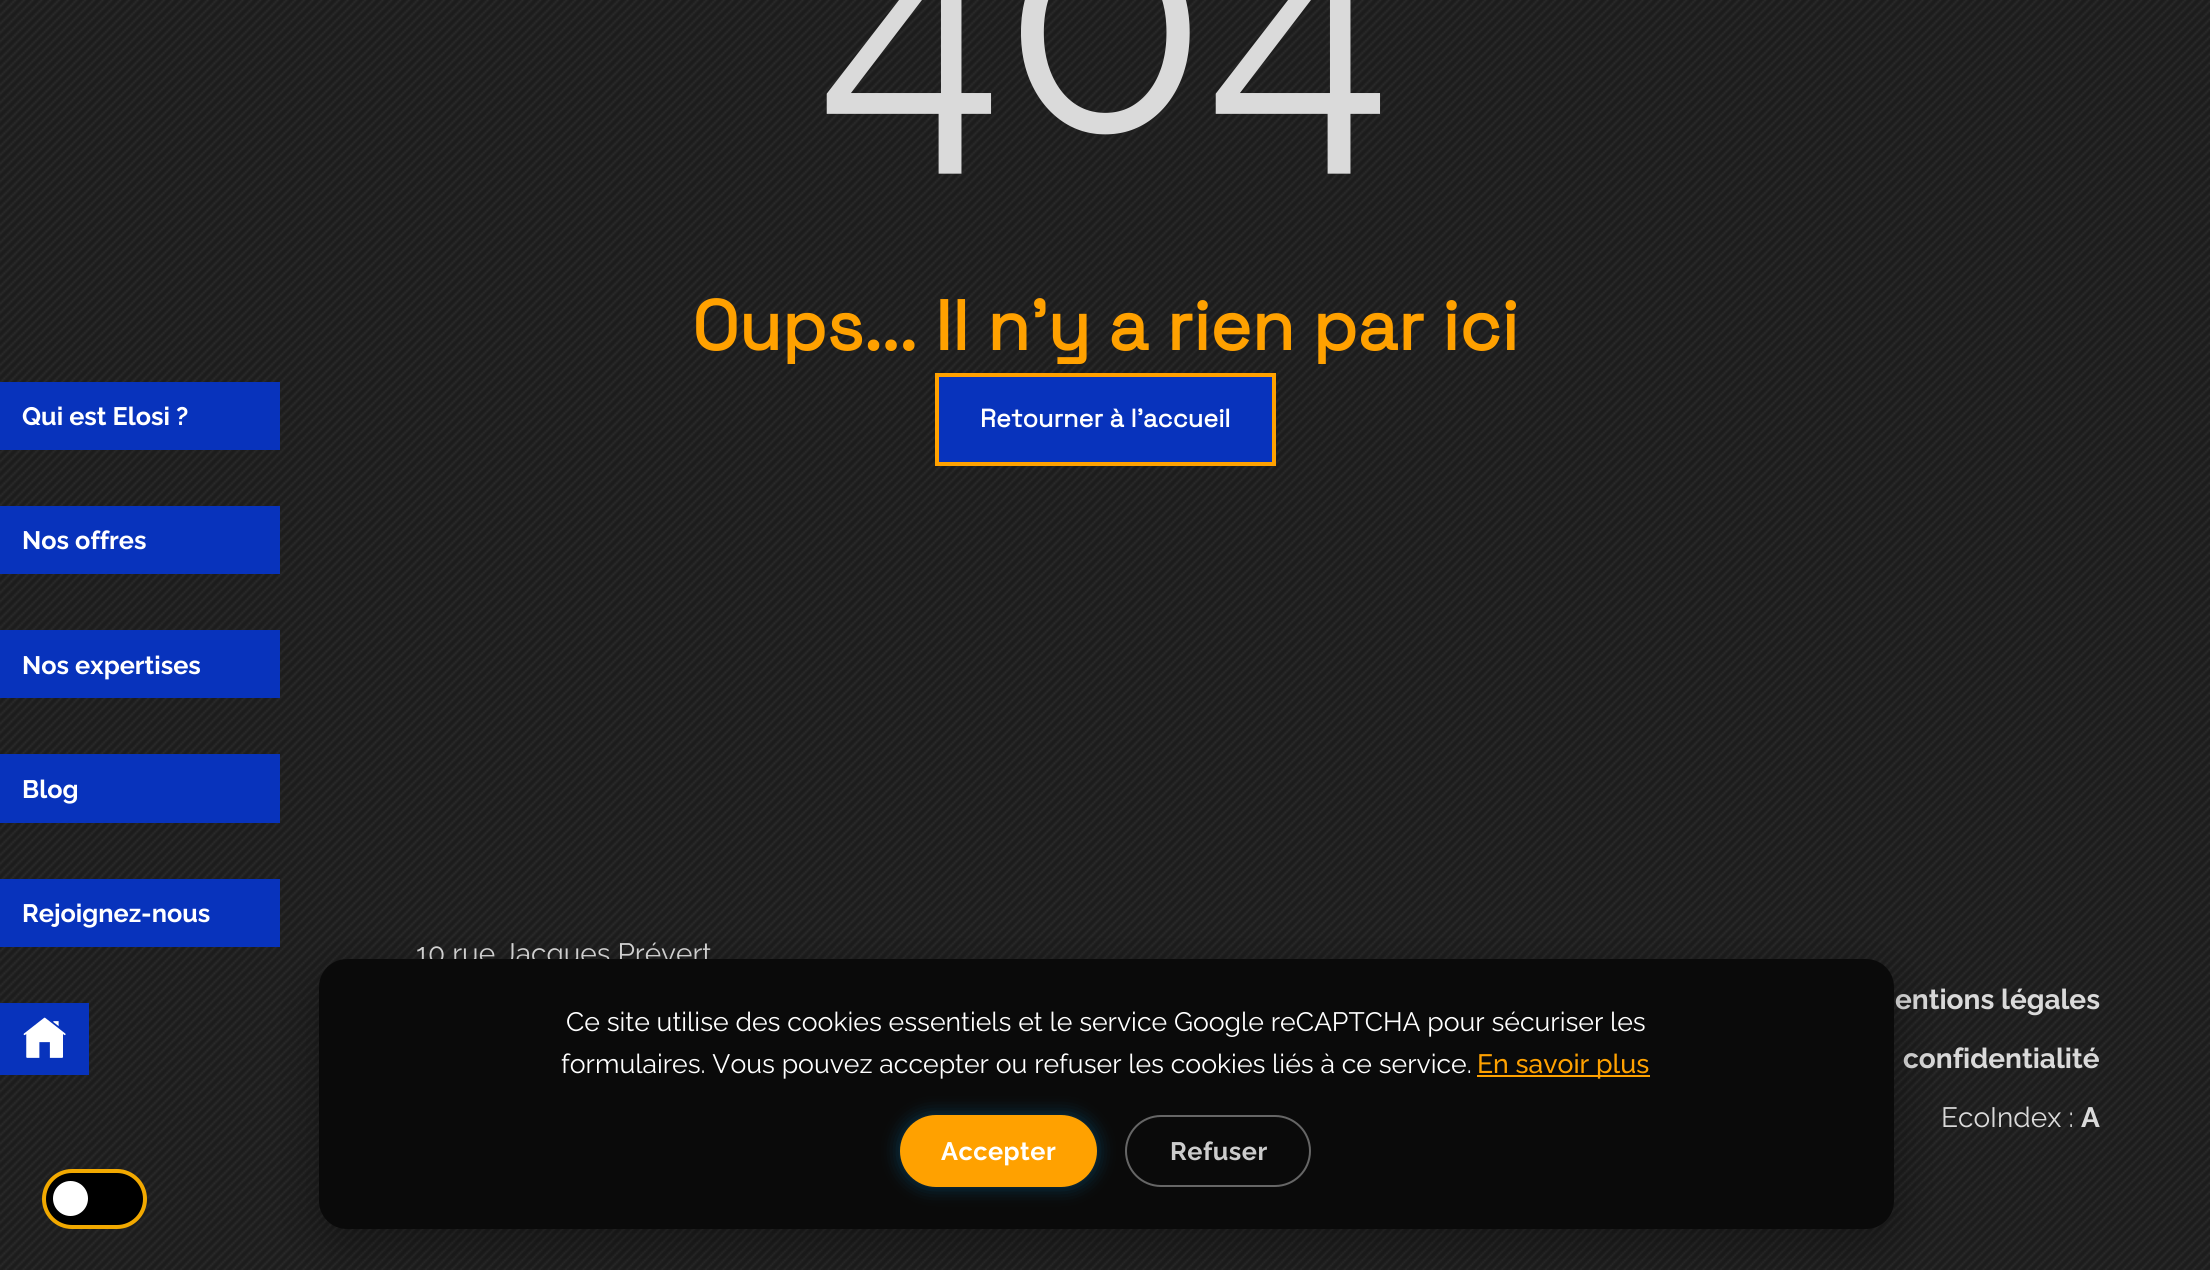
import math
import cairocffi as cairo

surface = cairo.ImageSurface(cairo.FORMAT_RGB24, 2210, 1270)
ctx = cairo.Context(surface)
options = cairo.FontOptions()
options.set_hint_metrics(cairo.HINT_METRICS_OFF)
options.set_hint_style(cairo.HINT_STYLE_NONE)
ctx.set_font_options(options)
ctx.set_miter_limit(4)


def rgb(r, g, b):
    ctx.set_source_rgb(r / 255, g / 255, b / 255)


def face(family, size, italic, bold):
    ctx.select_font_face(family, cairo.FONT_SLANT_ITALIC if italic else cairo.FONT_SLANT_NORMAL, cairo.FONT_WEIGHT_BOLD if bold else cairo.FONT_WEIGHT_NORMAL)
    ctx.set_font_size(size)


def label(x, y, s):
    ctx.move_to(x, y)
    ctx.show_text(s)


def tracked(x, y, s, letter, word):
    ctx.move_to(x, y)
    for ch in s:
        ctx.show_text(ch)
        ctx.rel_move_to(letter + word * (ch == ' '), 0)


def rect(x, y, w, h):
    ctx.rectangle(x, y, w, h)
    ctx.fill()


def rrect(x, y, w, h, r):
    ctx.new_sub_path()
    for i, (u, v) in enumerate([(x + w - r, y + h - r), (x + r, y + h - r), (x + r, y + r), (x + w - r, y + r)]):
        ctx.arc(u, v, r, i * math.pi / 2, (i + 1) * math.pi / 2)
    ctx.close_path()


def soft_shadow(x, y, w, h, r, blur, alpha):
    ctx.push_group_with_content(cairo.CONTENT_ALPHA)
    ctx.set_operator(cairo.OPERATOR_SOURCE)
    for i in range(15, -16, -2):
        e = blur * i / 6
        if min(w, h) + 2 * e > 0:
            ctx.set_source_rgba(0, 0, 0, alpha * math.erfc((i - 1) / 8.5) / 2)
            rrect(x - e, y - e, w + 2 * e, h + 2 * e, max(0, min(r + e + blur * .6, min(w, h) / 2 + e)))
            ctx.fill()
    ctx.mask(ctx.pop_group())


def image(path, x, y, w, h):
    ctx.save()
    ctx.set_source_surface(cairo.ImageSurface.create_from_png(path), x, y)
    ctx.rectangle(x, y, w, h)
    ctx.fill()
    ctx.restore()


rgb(28, 28, 28)
ctx.paint()
image('image0.png', 0, 0, 2210, 1270)
face('Raleway', 336, 0, 0)
rgb(218, 218, 218)
label(819, 131, '404')
face('Space Grotesk', 70, 0, 1)
rgb(255, 161, 0)
label(692, 350, 'Oups... Il n\'y a rien par ici')
rgb(8, 51, 188)
ctx.rectangle(937, 375, 337, 89)
ctx.fill_preserve()
rgb(255, 161, 0)
ctx.set_line_width(4)
ctx.stroke()
face('Space Grotesk', 25.25, 0, 1)
rgb(255, 255, 255)
label(980, 427, 'Retourner à l\'accueil')
rgb(8, 51, 188)
rect(0, 382, 280, 68)
face('Raleway', 25.25, 0, 1)
rgb(255, 255, 255)
label(22, 425, 'Qui est Elosi ?')
rgb(8, 51, 188)
rect(0, 506, 280, 68)
rgb(255, 255, 255)
label(22, 549, 'Nos offres')
rgb(8, 51, 188)
rect(0, 630, 280, 68)
rgb(255, 255, 255)
label(22, 674, 'Nos expertises')
rgb(8, 51, 188)
rect(0, 754, 280, 69)
rgb(255, 255, 255)
label(22, 798, 'Blog')
rgb(8, 51, 188)
rect(0, 879, 280, 68)
rgb(255, 255, 255)
label(22, 922, 'Rejoignez-nous')
rgb(8, 51, 188)
rect(0, 1003, 89, 72)
image('image1.png', 23, 1017, 43, 41)
face('Raleway', 28, 0, 0)
rgb(218, 218, 218)
label(416, 963, '10 rue Jacques Prévert')
face('Raleway', 28, 0, 1)
label(1895, 1009, 'entions légales')
label(1903, 1068, 'confidentialité')
face('Raleway', 28, 0, 0)
label(1941, 1127, 'EcoIndex :')
face('Raleway', 28, 0, 1)
label(2081, 1127, 'A')
rgb(0, 0, 0)
rrect(44, 1171, 101, 56, 28)
ctx.fill_preserve()
rgb(242, 169, 0)
ctx.stroke()
rgb(255, 255, 255)
ctx.arc(70.5, 1198.5, 17.5, 0, 2 * math.pi)
ctx.fill()
rgb(0, 0, 0)
soft_shadow(319, 977, 1575, 269, 28, 26, 0.3)
rgb(10, 10, 10)
rrect(319, 959, 1575, 270, 28)
ctx.fill()
face('Raleway', 26.6, 0, 0)
rgb(255, 255, 255)
label(566, 1031, 'Ce site utilise des cookies essentiels et le service Google reCAPTCHA pour sécuriser les')
label(561, 1073, 'formulaires. Vous pouvez accepter ou refuser les cookies liés à ce service.')
rgb(255, 161, 0)
rect(1477, 1075, 173, 2)
face('Raleway Medium', 26.6, 0, 0)
label(1477, 1073, 'En savoir plus')
rgb(0, 170, 255)
soft_shadow(900, 1115, 197, 72, 36, 9, 0.3)
rgb(255, 161, 0)
rrect(900, 1115, 197, 72, 36)
ctx.fill()
face('Raleway', 25.25, 0, 1)
rgb(255, 255, 255)
tracked(941, 1160, 'Accepter', 0.5, 0)
rrect(1126, 1116, 184, 70, 35)
rgb(102, 102, 102)
ctx.set_line_width(2)
ctx.stroke()
rgb(204, 204, 204)
tracked(1170, 1160, 'Refuser', 0.5, 0)
surface.write_to_png('render.png')
